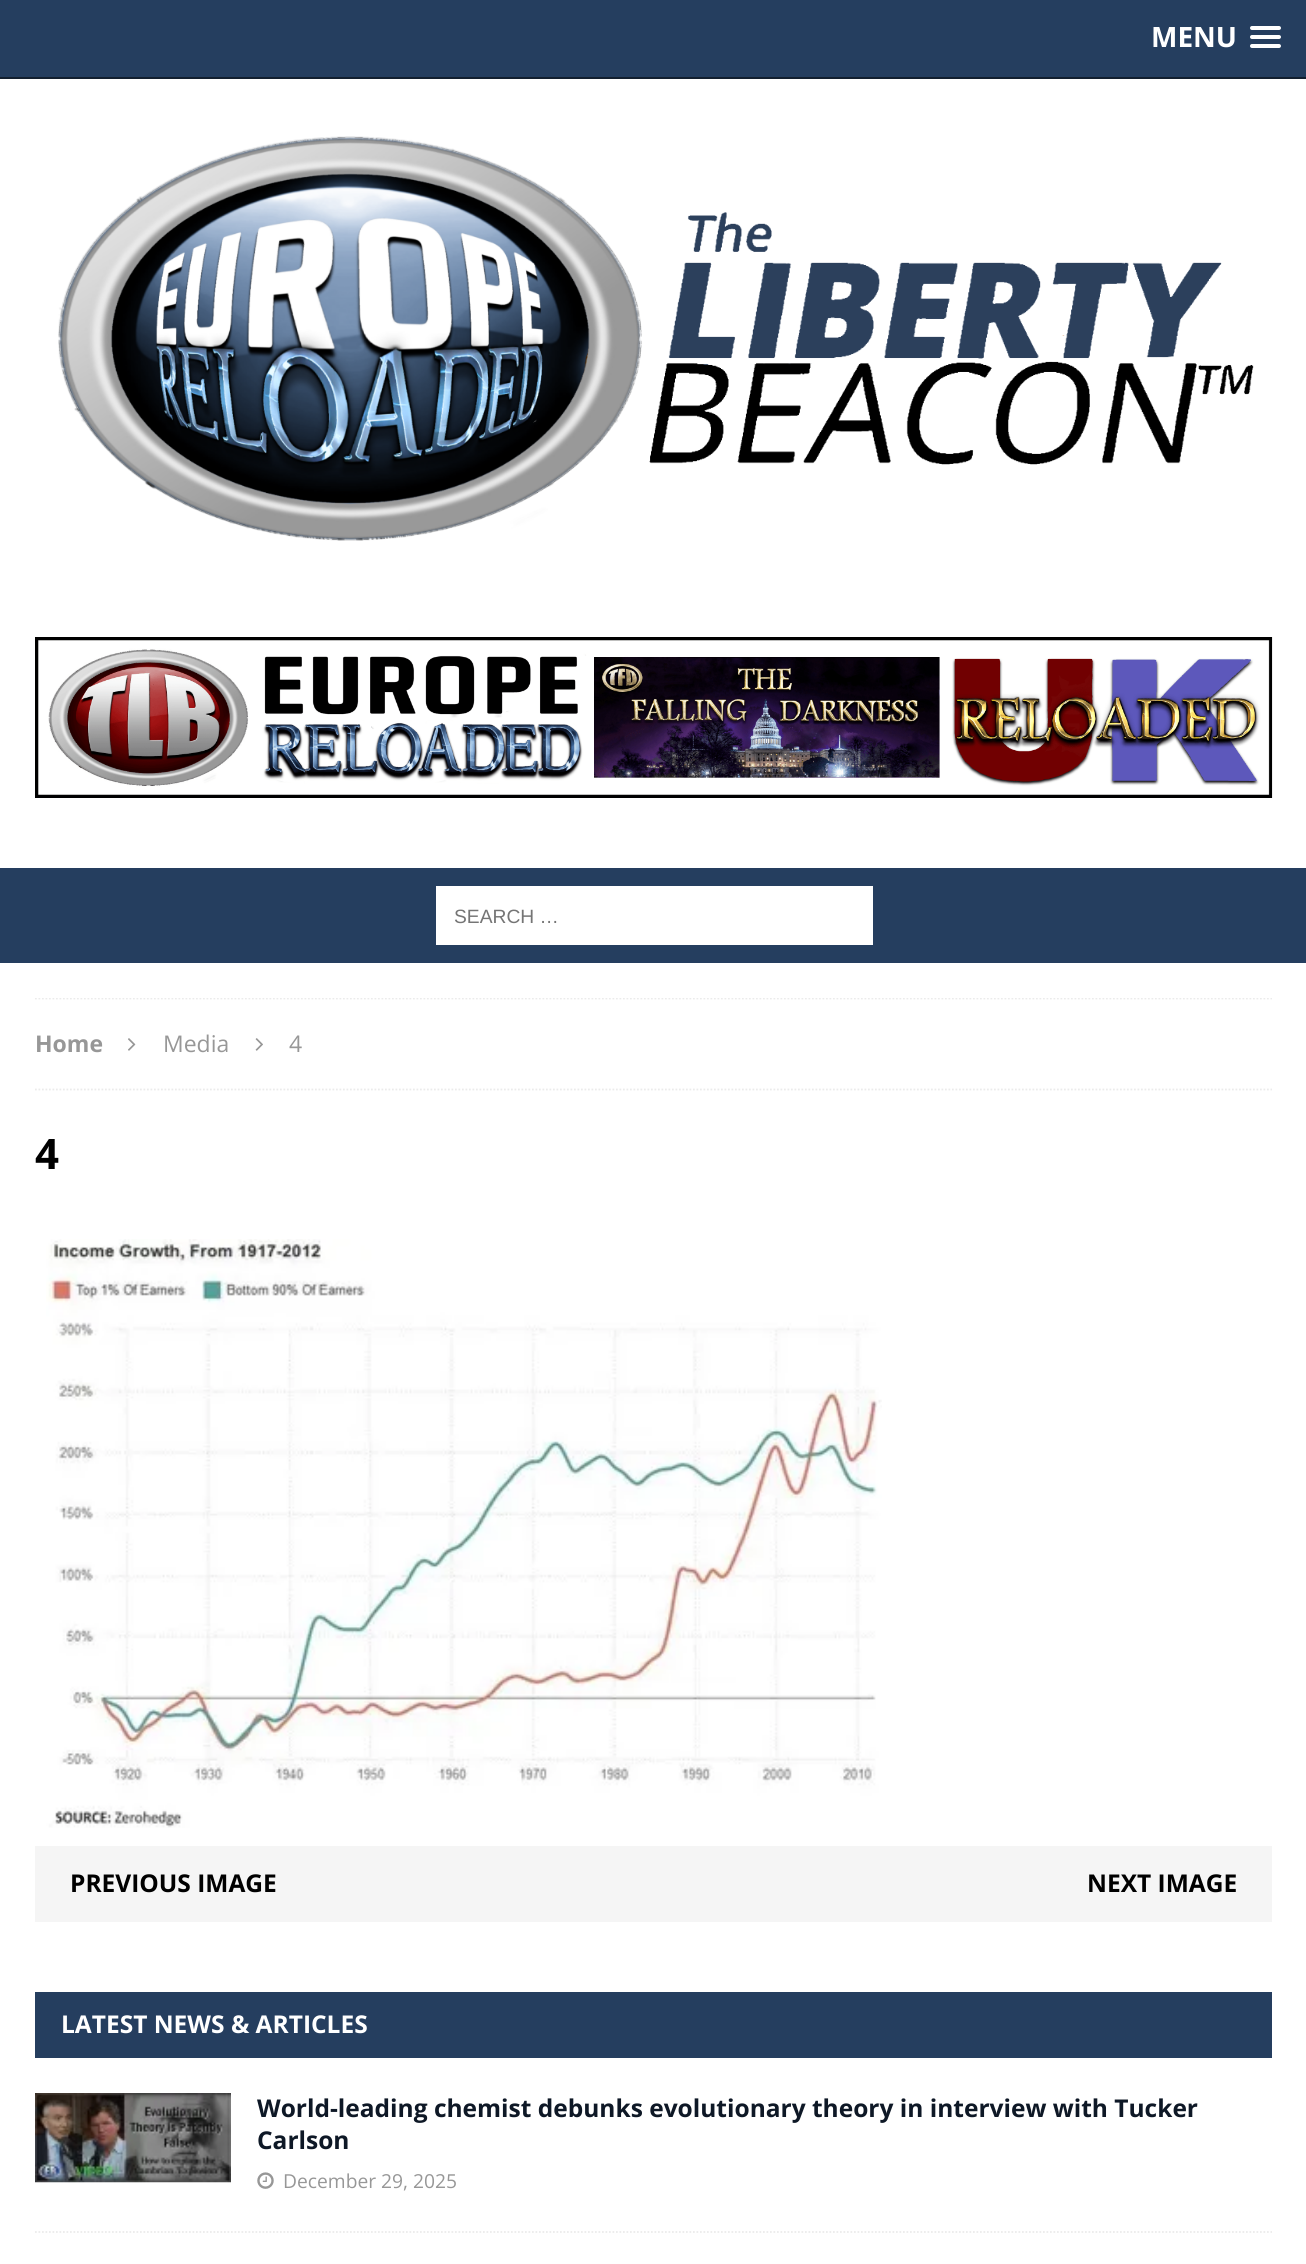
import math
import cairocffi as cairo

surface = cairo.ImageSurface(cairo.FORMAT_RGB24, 1306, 2264)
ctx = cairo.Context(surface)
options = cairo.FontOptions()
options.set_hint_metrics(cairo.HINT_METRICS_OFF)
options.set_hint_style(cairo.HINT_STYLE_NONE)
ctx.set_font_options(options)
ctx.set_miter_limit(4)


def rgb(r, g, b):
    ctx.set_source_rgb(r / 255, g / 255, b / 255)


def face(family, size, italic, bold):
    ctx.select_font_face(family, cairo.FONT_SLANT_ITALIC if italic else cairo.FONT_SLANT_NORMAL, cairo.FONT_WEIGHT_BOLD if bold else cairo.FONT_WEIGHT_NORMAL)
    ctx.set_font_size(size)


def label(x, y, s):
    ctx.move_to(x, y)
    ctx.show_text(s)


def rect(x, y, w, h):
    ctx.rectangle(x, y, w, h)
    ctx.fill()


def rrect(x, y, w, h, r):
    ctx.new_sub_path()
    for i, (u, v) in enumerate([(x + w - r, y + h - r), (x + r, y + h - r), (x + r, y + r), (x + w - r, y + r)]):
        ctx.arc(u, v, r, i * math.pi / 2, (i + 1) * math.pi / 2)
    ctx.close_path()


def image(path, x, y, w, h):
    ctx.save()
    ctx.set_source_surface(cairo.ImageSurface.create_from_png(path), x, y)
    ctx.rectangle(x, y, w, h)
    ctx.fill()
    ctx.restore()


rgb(37, 62, 95)
ctx.paint()
rgb(18, 31, 47)
rect(0, 77, 1306, 2)
face('Open Sans', 28, 0, 1)
rgb(255, 255, 255)
label(1151, 47, 'MENU')
rrect(1250, 26, 31, 4, 2)
ctx.fill()
rrect(1250, 35, 31, 4, 2)
ctx.fill()
rrect(1250, 44, 31, 4, 2)
ctx.fill()
rect(0, 79, 1306, 789)
image('image0.png', 58, 136, 1196, 405)
image('image1.png', 35, 637, 1238, 161)
rect(436, 886, 437, 59)
face('Liberation Sans', 19.25, 0, 0)
rgb(117, 117, 117)
label(454, 923, 'SEARCH …')
rgb(255, 255, 255)
rect(0, 963, 1306, 1301)
ctx.save()
ctx.rectangle(35, 998, 1237, 959)
ctx.clip()
ctx.new_path()
ctx.move_to(35, 998.5)
ctx.line_to(1272, 998.5)
rgb(235, 235, 235)
ctx.set_line_width(1.8)
ctx.set_dash([1.75, 1.75])
ctx.stroke()
ctx.restore()
ctx.new_path()
ctx.move_to(35, 1089.5)
ctx.line_to(1272, 1089.5)
rgb(235, 235, 235)
ctx.set_line_width(1.8)
ctx.set_dash([1.75, 1.75])
ctx.stroke()
face('Open Sans', 23, 0, 1)
rgb(151, 151, 151)
label(35, 1052, 'Home')
image('image2.png', 128, 1038, 8, 13)
face('Open Sans', 23, 0, 0)
label(163, 1052, 'Media')
image('image3.png', 255, 1038, 8, 13)
label(289, 1052, '4')
face('Open Sans', 42, 0, 1)
rgb(0, 0, 0)
label(35, 1169, '4')
image('image4.png', 46, 1239, 836, 589)
rgb(245, 245, 245)
rect(35, 1846, 1237, 76)
face('Open Sans', 24.5, 0, 1)
rgb(0, 0, 0)
label(70, 1892, 'PREVIOUS IMAGE')
label(1087, 1892, 'NEXT IMAGE')
rgb(37, 62, 95)
rect(35, 1992, 1237, 66)
rgb(255, 255, 255)
label(61, 2033, 'LATEST NEWS & ARTICLES')
ctx.new_path()
ctx.move_to(35, 2232)
ctx.line_to(1272, 2232)
rgb(235, 235, 235)
ctx.stroke()
image('image5.png', 35, 2093, 196, 90)
rgb(14, 24, 38)
label(257, 2117, 'World-leading chemist debunks evolutionary theory in interview with Tucker')
label(257, 2149, 'Carlson')
image('image6.png', 257, 2172, 17, 17)
face('Open Sans', 19.25, 0, 0)
rgb(151, 151, 151)
label(283, 2188, 'December 29, 2025')
surface.write_to_png('render.png')
